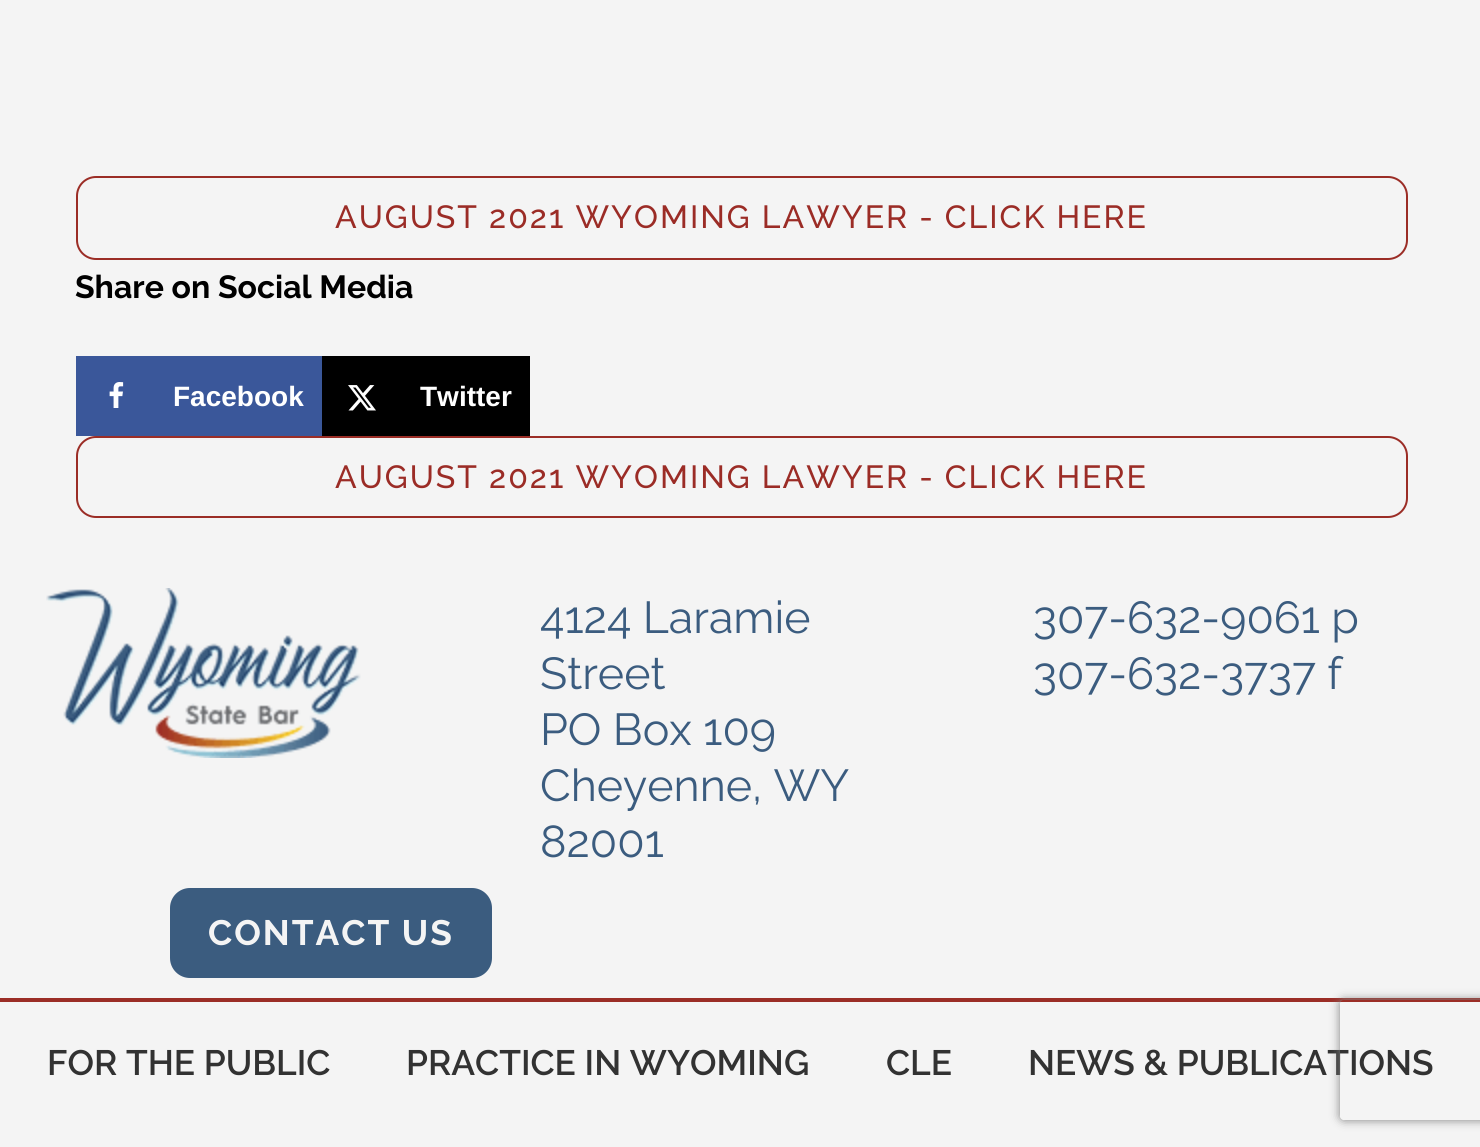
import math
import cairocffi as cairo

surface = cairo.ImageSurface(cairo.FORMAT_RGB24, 1480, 1147)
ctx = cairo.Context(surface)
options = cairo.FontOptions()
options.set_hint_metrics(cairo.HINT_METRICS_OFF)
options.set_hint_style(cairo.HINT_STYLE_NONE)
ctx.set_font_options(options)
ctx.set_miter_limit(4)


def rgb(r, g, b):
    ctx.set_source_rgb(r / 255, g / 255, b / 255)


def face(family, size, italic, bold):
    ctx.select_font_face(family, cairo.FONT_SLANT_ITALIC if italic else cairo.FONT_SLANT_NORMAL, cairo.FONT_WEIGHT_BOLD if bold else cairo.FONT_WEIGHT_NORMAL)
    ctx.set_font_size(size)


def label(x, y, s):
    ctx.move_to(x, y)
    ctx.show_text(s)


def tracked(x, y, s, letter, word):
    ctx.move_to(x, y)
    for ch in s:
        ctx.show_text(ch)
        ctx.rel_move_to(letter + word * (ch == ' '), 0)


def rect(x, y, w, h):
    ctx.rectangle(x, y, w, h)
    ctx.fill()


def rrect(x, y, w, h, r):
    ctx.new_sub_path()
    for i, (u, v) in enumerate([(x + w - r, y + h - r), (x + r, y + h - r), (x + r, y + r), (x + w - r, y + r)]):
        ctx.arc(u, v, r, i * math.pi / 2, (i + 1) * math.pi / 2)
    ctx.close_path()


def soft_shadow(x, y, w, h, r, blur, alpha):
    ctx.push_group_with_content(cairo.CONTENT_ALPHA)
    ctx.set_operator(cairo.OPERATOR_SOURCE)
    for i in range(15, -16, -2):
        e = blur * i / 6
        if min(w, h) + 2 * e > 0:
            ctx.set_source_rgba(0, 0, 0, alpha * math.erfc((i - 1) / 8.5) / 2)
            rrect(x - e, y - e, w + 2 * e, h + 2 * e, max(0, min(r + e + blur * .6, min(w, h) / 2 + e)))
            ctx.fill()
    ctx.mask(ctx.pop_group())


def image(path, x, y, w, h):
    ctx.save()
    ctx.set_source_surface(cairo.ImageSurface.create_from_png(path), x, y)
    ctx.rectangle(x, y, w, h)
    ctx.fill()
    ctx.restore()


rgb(244, 244, 244)
ctx.paint()
rrect(77, 177, 1330, 82, 19)
rgb(155, 45, 38)
ctx.stroke()
face('Raleway Medium', 32, 0, 0)
rgb(155, 44, 38)
tracked(335, 228, 'AUGUST 2021 WYOMING LAWYER - CLICK HERE', 2, 0)
face('Raleway', 32, 0, 1)
rgb(0, 0, 0)
label(75, 298, 'Share on Social Media')
rgb(58, 87, 154)
rect(76, 356, 246, 80)
image('image0.png', 109, 382, 15, 26)
face('Liberation Sans', 28, 0, 1)
rgb(255, 255, 255)
label(173, 406, 'Facebook')
rgb(0, 0, 0)
rect(322, 356, 208, 80)
image('image1.png', 348, 385, 28, 26)
rgb(255, 255, 255)
label(420, 406, 'Twitter')
rrect(77, 437, 1330, 80, 19)
rgb(155, 45, 38)
ctx.stroke()
face('Raleway Medium', 32, 0, 0)
rgb(155, 44, 38)
tracked(335, 488, 'AUGUST 2021 WYOMING LAWYER - CLICK HERE', 2, 0)
rgb(155, 45, 38)
rect(0, 998, 1480, 4)
image('image2.png', 46, 588, 315, 170)
face('Raleway', 44.75, 0, 0)
rgb(59, 92, 127)
label(540, 633, '4124 Laramie')
label(540, 689, 'Street')
label(540, 745, 'PO Box 109')
label(540, 801, 'Cheyenne, WY')
label(540, 857, '82001')
label(1033, 633, '307-632-9061 p')
label(1033, 689, '307-632-3737 f')
rrect(171, 889, 320, 88, 19)
ctx.fill_preserve()
ctx.stroke()
face('Raleway', 35.25, 0, 1)
rgb(244, 244, 244)
tracked(208, 945, 'CONTACT US', 2, 0)
face('Raleway SemiBold', 35.25, 0, 0)
rgb(50, 50, 50)
label(47, 1075, 'FOR THE PUBLIC')
label(406, 1075, 'PRACTICE IN WYOMING')
label(886, 1075, 'CLE')
label(1028, 1075, 'NEWS & PUBLICATIONS')
ctx.save()
ctx.set_fill_rule(cairo.FILL_RULE_EVEN_ODD)
ctx.new_path()
ctx.move_to(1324, 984)
ctx.line_to(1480, 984)
ctx.line_to(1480, 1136)
ctx.line_to(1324, 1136)
ctx.close_path()
ctx.move_to(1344, 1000)
ctx.line_to(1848, 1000)
ctx.curve_to(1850, 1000, 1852, 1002, 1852, 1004)
ctx.line_to(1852, 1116)
ctx.curve_to(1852, 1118, 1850, 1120, 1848, 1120)
ctx.line_to(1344, 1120)
ctx.curve_to(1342, 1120, 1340, 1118, 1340, 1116)
ctx.line_to(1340, 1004)
ctx.curve_to(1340, 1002, 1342, 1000, 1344, 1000)
ctx.close_path()
ctx.clip()
rgb(128, 128, 128)
soft_shadow(1340, 1000, 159, 120, 4, 5, 1)
ctx.restore()
surface.write_to_png('render.png')
